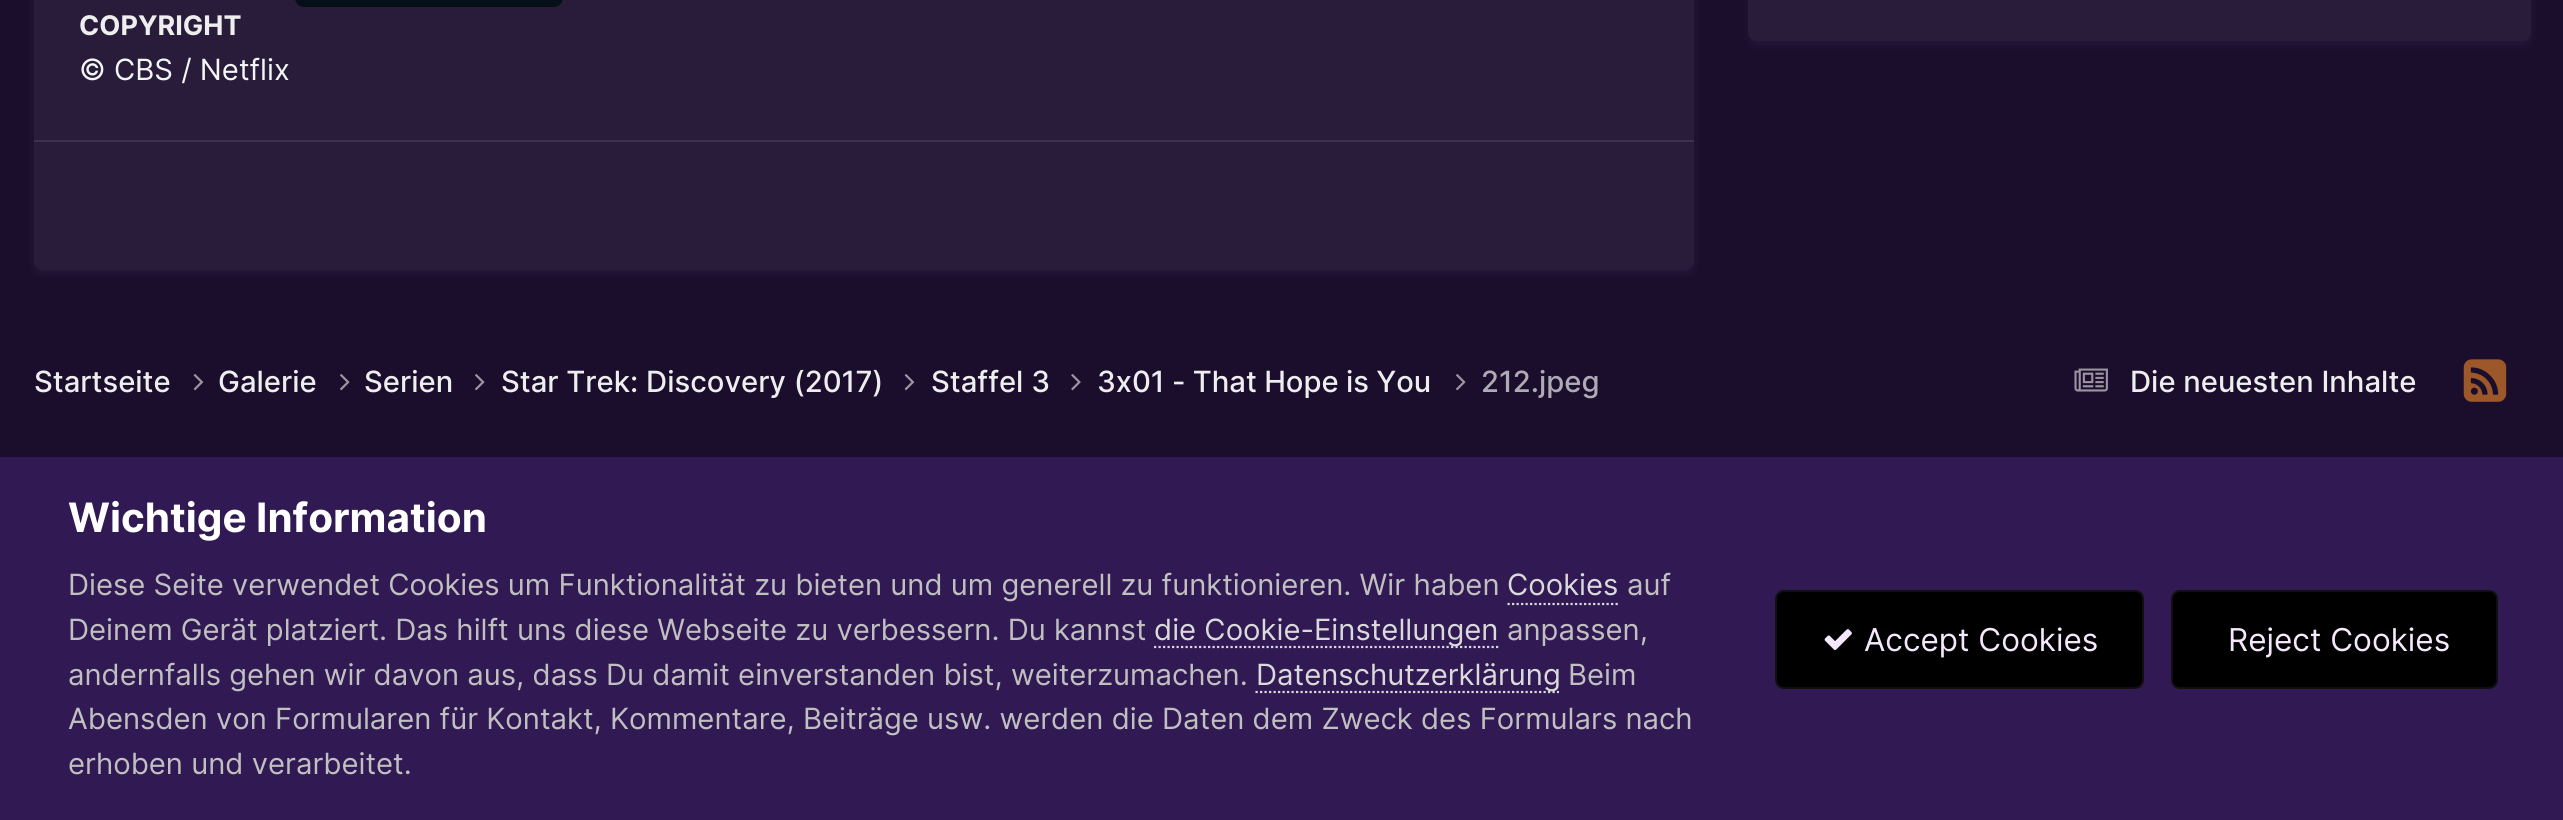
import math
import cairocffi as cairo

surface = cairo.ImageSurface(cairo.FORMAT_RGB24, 2563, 820)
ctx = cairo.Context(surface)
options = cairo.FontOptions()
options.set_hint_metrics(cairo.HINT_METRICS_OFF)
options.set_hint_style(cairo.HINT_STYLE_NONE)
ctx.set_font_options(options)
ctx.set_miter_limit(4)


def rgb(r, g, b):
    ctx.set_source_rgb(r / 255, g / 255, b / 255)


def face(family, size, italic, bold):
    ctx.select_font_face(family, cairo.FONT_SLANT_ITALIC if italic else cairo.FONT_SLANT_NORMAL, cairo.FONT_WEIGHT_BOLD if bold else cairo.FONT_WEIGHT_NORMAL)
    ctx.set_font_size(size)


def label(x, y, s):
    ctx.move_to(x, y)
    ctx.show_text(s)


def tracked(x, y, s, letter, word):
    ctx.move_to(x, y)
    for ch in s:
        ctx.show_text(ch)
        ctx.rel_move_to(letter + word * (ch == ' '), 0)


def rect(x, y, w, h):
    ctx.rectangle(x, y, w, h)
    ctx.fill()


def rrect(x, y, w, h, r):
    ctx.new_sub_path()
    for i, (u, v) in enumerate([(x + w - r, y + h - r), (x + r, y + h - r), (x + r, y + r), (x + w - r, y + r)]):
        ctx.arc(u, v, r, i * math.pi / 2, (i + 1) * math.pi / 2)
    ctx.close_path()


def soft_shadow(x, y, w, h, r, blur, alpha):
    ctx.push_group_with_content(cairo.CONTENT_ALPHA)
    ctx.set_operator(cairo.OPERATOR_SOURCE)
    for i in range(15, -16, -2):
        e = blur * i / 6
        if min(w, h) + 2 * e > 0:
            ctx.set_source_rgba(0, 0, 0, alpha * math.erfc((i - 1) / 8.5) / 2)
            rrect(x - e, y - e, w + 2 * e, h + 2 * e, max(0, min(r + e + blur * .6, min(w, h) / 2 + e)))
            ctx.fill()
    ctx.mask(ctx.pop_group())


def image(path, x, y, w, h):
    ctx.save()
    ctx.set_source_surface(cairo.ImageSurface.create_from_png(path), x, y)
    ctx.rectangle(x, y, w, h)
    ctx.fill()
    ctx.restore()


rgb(27, 14, 45)
ctx.paint()
rgb(175, 142, 224)
soft_shadow(36, -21, 1656, 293, 7, 4.5, 0.1)
rgb(41, 28, 59)
rrect(34, -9, 1660, 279, 9)
ctx.fill()
rgb(5, 15, 23)
rrect(295, -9, 268, 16, 9)
ctx.fill()
face('Inter', 27, 0, 1)
rgb(238, 238, 238)
label(79, 35, 'COPYRIGHT')
face('Inter', 29.25, 0, 0)
rgb(243, 246, 244)
label(79, 80, '© CBS / Netflix')
rgb(61, 50, 78)
rect(34, 140, 1660, 2)
rgb(175, 142, 224)
soft_shadow(1751, -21, 778, 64, 7, 4.5, 0.1)
rgb(41, 28, 59)
rrect(1748, -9, 783, 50, 9)
ctx.fill()
face('Inter Medium', 29.25, 0, 0)
rgb(238, 238, 238)
label(34, 392, 'Startseite')
image('image0.png', 193, 374, 11, 17)
label(218, 392, 'Galerie')
image('image1.png', 340, 374, 10, 17)
label(364, 392, 'Serien')
image('image1.png', 475, 374, 10, 17)
label(501, 392, 'Star Trek: Discovery (2017)')
image('image0.png', 904, 374, 11, 17)
label(931, 392, 'Staffel 3')
image('image2.png', 1071, 374, 10, 17)
tracked(1097, 392, '3x01 - That Hope is You', 0, -0.5)
image('image1.png', 1456, 374, 10, 17)
rgb(175, 171, 180)
label(1481, 392, '212.jpeg')
image('image3.png', 2074, 368, 34, 24)
rgb(238, 238, 238)
label(2130, 392, 'Die neuesten Inhalte')
image('image4.png', 2463, 359, 44, 43)
rgb(49, 25, 83)
rect(0, 457, 2563, 363)
face('Inter', 40.5, 0, 1)
rgb(255, 255, 255)
label(68, 532, 'Wichtige Information')
face('Inter', 29.25, 0, 0)
rgb(192, 192, 192)
label(68, 595, 'Diese Seite verwendet Cookies um Funktionalität zu bieten und um generell zu funktionieren. Wir haben')
rgb(218, 218, 218)
label(1507, 595, 'Cookies')
ctx.new_path()
ctx.move_to(1507.5, 604)
ctx.line_to(1618, 604)
ctx.set_line_width(2.2)
ctx.set_dash([2.25, 2.25])
ctx.stroke()
rgb(192, 192, 192)
label(1627, 595, 'auf')
label(68, 640, 'Deinem Gerät platziert. Das hilft uns diese Webseite zu verbessern. Du kannst')
ctx.new_path()
ctx.move_to(1154, 647)
ctx.line_to(1498.5, 647)
rgb(218, 218, 218)
ctx.stroke()
label(1154, 640, 'die Cookie-Einstellungen')
rgb(192, 192, 192)
label(1507, 640, 'anpassen,')
label(68, 685, 'andernfalls gehen wir davon aus, dass Du damit einverstanden bist, weiterzumachen.')
ctx.new_path()
ctx.move_to(1255.5, 692)
ctx.line_to(1559, 692)
rgb(218, 218, 218)
ctx.stroke()
label(1256, 685, 'Datenschutzerklärung')
rgb(192, 192, 192)
label(1568, 685, 'Beim')
label(68, 729, 'Abensden von Formularen für Kontakt, Kommentare, Beiträge usw. werden die Daten dem Zweck des Formulars nach')
label(68, 774, 'erhoben und verarbeitet.')
rgb(0, 0, 0)
rrect(1775, 590, 369, 99, 9)
ctx.fill()
rrect(1776, 591, 367, 97, 8)
ctx.set_source_rgba(0.965, 0.91, 0.988, 0.07)
ctx.set_line_width(2)
ctx.set_dash([])
ctx.stroke()
image('image5.png', 1824, 629, 28, 21)
face('Inter', 31.5, 0, 0)
rgb(246, 232, 252)
label(1864, 651, 'Accept Cookies')
rgb(0, 0, 0)
rrect(2171, 590, 327, 99, 9)
ctx.fill()
rrect(2172, 591, 325, 97, 8)
ctx.set_source_rgba(0.965, 0.91, 0.988, 0.07)
ctx.stroke()
rgb(246, 232, 252)
label(2228, 651, 'Reject Cookies')
surface.write_to_png('render.png')
